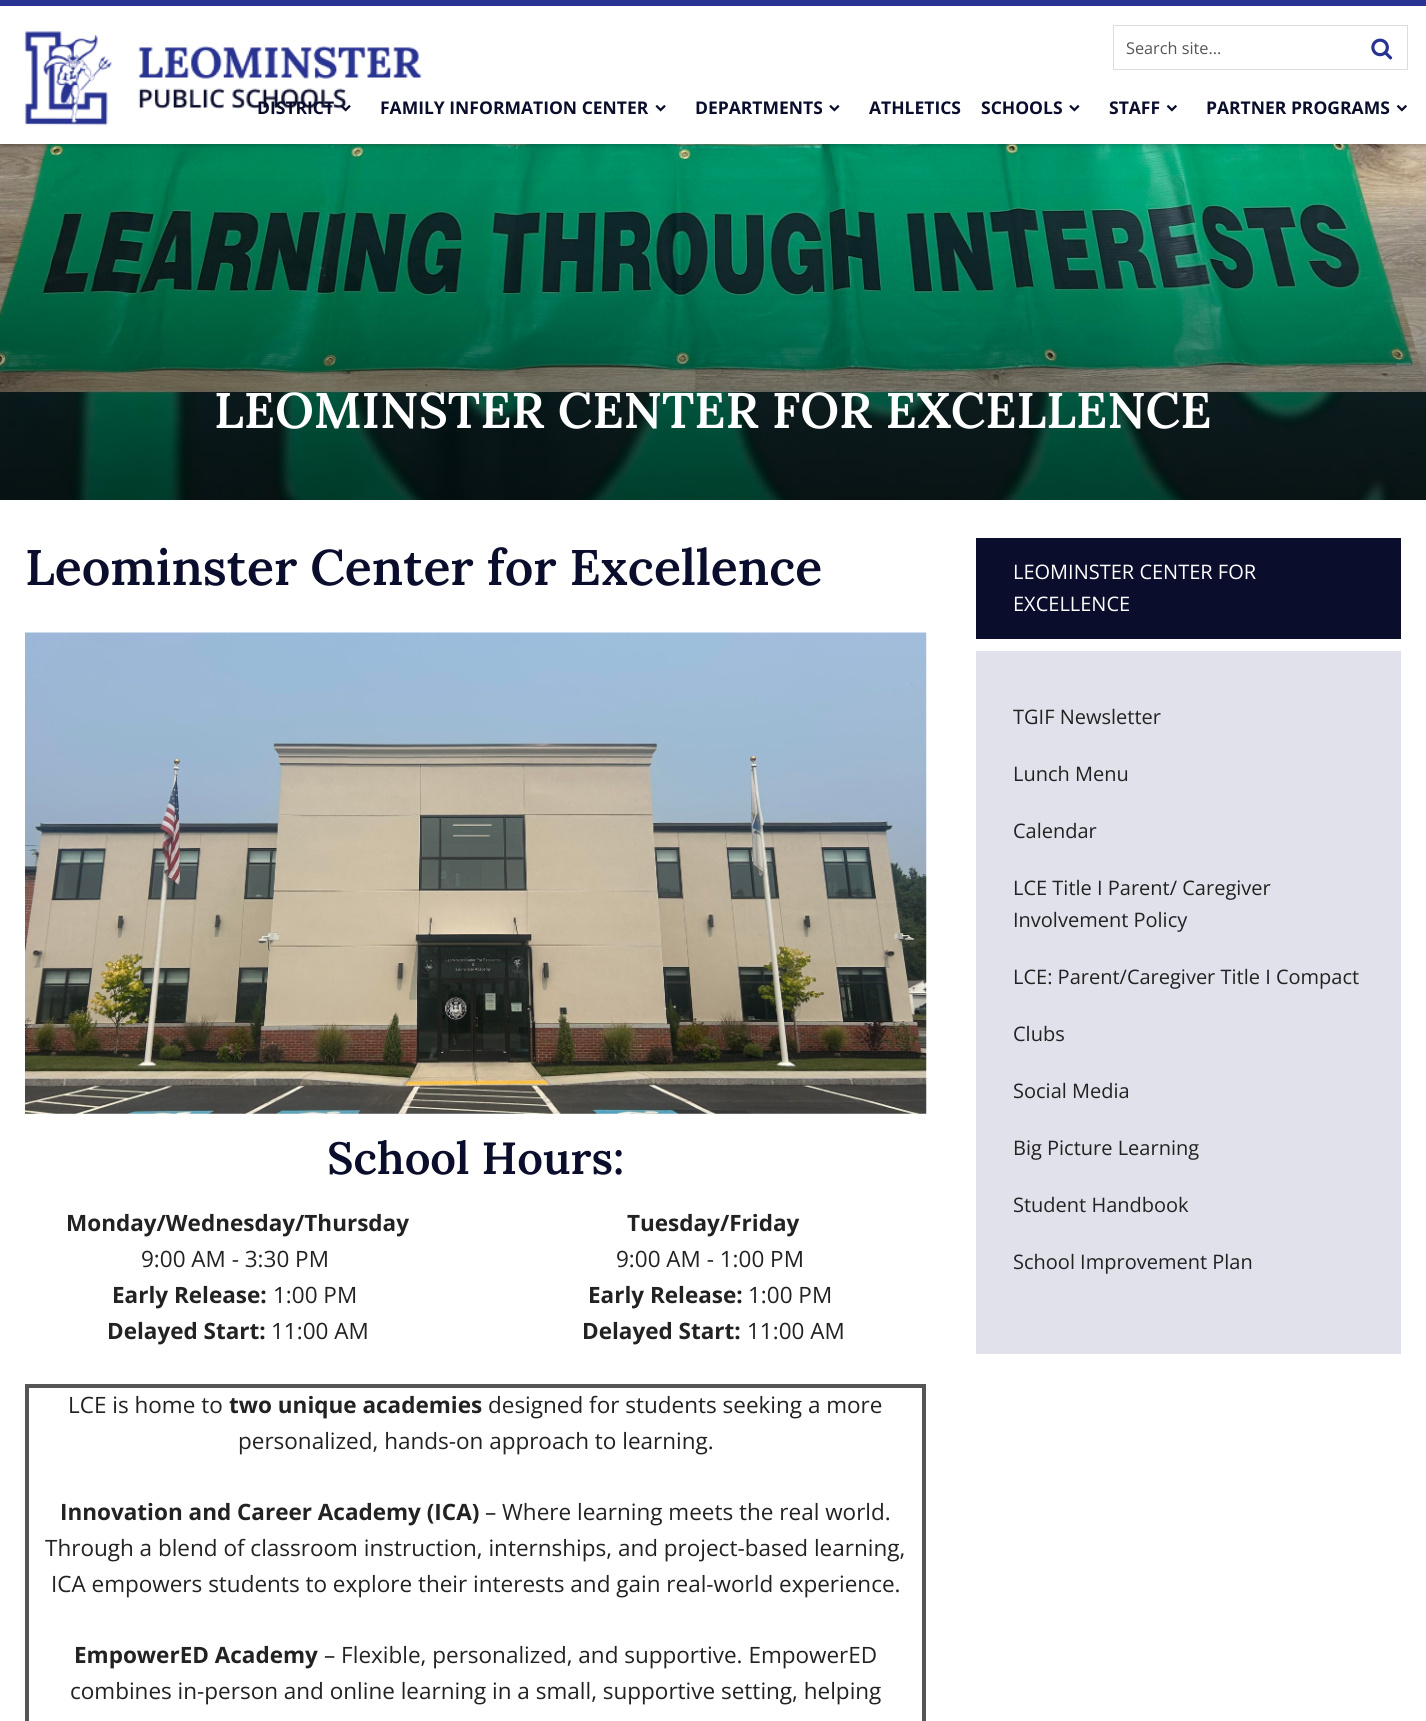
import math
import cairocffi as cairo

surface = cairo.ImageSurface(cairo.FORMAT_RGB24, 1426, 1721)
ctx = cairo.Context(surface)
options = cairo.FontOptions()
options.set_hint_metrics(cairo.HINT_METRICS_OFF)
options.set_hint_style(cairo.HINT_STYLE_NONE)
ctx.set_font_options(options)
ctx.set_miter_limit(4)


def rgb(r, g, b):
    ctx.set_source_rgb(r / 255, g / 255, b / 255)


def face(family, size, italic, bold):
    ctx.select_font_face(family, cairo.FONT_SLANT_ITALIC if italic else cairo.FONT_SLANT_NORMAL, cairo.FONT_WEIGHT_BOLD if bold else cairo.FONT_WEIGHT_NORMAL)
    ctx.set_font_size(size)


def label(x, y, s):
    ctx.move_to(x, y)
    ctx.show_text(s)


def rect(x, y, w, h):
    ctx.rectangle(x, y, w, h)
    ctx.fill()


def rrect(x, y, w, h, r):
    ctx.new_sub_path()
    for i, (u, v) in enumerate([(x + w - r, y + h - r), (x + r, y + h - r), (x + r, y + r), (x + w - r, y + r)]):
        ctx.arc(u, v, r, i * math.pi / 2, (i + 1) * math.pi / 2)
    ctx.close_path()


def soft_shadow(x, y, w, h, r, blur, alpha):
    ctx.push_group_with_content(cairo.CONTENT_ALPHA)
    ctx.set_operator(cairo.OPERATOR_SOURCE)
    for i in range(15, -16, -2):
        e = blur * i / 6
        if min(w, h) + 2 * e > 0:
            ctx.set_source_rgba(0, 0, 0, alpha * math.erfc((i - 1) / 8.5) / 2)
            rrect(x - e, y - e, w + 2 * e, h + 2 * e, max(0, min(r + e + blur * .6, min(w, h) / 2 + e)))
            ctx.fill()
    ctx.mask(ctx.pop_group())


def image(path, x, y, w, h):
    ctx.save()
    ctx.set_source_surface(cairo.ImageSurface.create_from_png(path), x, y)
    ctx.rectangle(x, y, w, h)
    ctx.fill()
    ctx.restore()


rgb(255, 255, 255)
ctx.paint()
image('image5.png', 0, 144, 1426, 356)
rgb(0, 0, 0)
soft_shadow(0, 3, 1426, 143, 0, 2, 0.2)
rgb(255, 255, 255)
rect(0, 6, 1426, 138)
rgb(41, 51, 145)
rect(0, 0, 1426, 6)
face('Open Sans', 17.5, 0, 1)
rgb(10, 13, 44)
label(257, 114, 'DISTRICT')
image('image2.png', 340, 105, 11, 7)
label(380, 114, 'FAMILY INFORMATION CENTER')
image('image0.png', 24, 31, 398, 95)
ctx.rectangle(1113.5, 25.5, 294, 44)
rgb(221, 221, 221)
ctx.set_line_width(1)
ctx.stroke()
face('Open Sans', 16.25, 0, 0)
rgb(85, 85, 85)
label(1126, 54, 'Search site...')
image('image1.png', 1371, 38, 22, 22)
image('image2.png', 655, 105, 11, 7)
face('Open Sans', 17.5, 0, 1)
rgb(10, 13, 44)
label(695, 114, 'DEPARTMENTS')
image('image3.png', 829, 105, 11, 7)
label(869, 114, 'ATHLETICS')
label(981, 114, 'SCHOOLS')
image('image3.png', 1069, 105, 11, 7)
label(1109, 114, 'STAFF')
image('image4.png', 1166, 105, 11, 7)
label(1206, 114, 'PARTNER PROGRAMS')
image('image4.png', 1396, 105, 11, 7)
image('image6.png', 0, 179, 1426, 321)
face('Lora SemiBold', 50, 0, 0)
rgb(255, 255, 255)
label(214, 428, 'LEOMINSTER CENTER FOR EXCELLENCE')
rgb(10, 13, 44)
label(25, 585, 'Leominster Center for Excellence')
image('image7.png', 25, 632, 902, 482)
face('Lora SemiBold', 45, 0, 0)
label(327, 1174, 'School Hours:')
face('Open Sans', 22.5, 0, 1)
rgb(34, 34, 34)
label(66, 1231, 'Monday/Wednesday/Thursday')
face('Open Sans', 22.5, 0, 0)
label(141, 1267, '9:00 AM - 3:30 PM')
face('Open Sans', 22.5, 0, 1)
label(112, 1303, 'Early Release:')
face('Open Sans', 22.5, 0, 0)
label(273, 1303, '1:00 PM')
face('Open Sans', 22.5, 0, 1)
label(107, 1339, 'Delayed Start:')
face('Open Sans', 22.5, 0, 0)
label(271, 1339, '11:00 AM')
face('Open Sans', 22.5, 0, 1)
label(627, 1231, 'Tuesday/Friday')
face('Open Sans', 22.5, 0, 0)
label(616, 1267, '9:00 AM - 1:00 PM')
face('Open Sans', 22.5, 0, 1)
label(588, 1303, 'Early Release:')
face('Open Sans', 22.5, 0, 0)
label(748, 1303, '1:00 PM')
face('Open Sans', 22.5, 0, 1)
label(582, 1339, 'Delayed Start:')
face('Open Sans', 22.5, 0, 0)
label(747, 1339, '11:00 AM')
ctx.rectangle(27, 1386, 897, 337)
rgb(85, 85, 85)
ctx.set_line_width(4)
ctx.stroke()
rgb(34, 34, 34)
label(68, 1413, 'LCE is home to')
face('Open Sans', 22.5, 0, 1)
label(229, 1413, 'two unique academies')
face('Open Sans', 22.5, 0, 0)
label(488, 1413, 'designed for students seeking a more')
label(238, 1449, 'personalized, hands-on approach to learning.')
face('Open Sans', 22.5, 0, 1)
label(60, 1520, 'Innovation and Career Academy (ICA)')
face('Open Sans', 22.5, 0, 0)
label(485, 1520, '– Where learning meets the real world.')
label(45, 1556, 'Through a blend of classroom instruction, internships, and project-based learning,')
label(51, 1592, 'ICA empowers students to explore their interests and gain real-world experience.')
face('Open Sans', 22.5, 0, 1)
label(74, 1663, 'EmpowerED Academy')
face('Open Sans', 22.5, 0, 0)
label(324, 1663, '– Flexible, personalized, and supportive. EmpowerED')
label(70, 1699, 'combines in-person and online learning in a small, supportive setting, helping')
rgb(10, 13, 44)
rect(976, 538, 425, 101)
face('Open Sans', 20, 0, 0)
rgb(255, 255, 255)
label(1013, 579, 'LEOMINSTER CENTER FOR')
label(1013, 611, 'EXCELLENCE')
rgb(224, 225, 234)
rect(976, 651, 425, 703)
rgb(34, 34, 34)
label(1013, 724, 'TGIF Newsletter')
label(1013, 781, 'Lunch Menu')
label(1013, 838, 'Calendar')
label(1013, 895, 'LCE Title I Parent/ Caregiver')
label(1013, 927, 'Involvement Policy')
label(1013, 984, 'LCE: Parent/Caregiver Title I Compact')
label(1013, 1041, 'Clubs')
label(1013, 1098, 'Social Media')
label(1013, 1155, 'Big Picture Learning')
label(1013, 1212, 'Student Handbook')
label(1013, 1269, 'School Improvement Plan')
surface.write_to_png('render.png')
